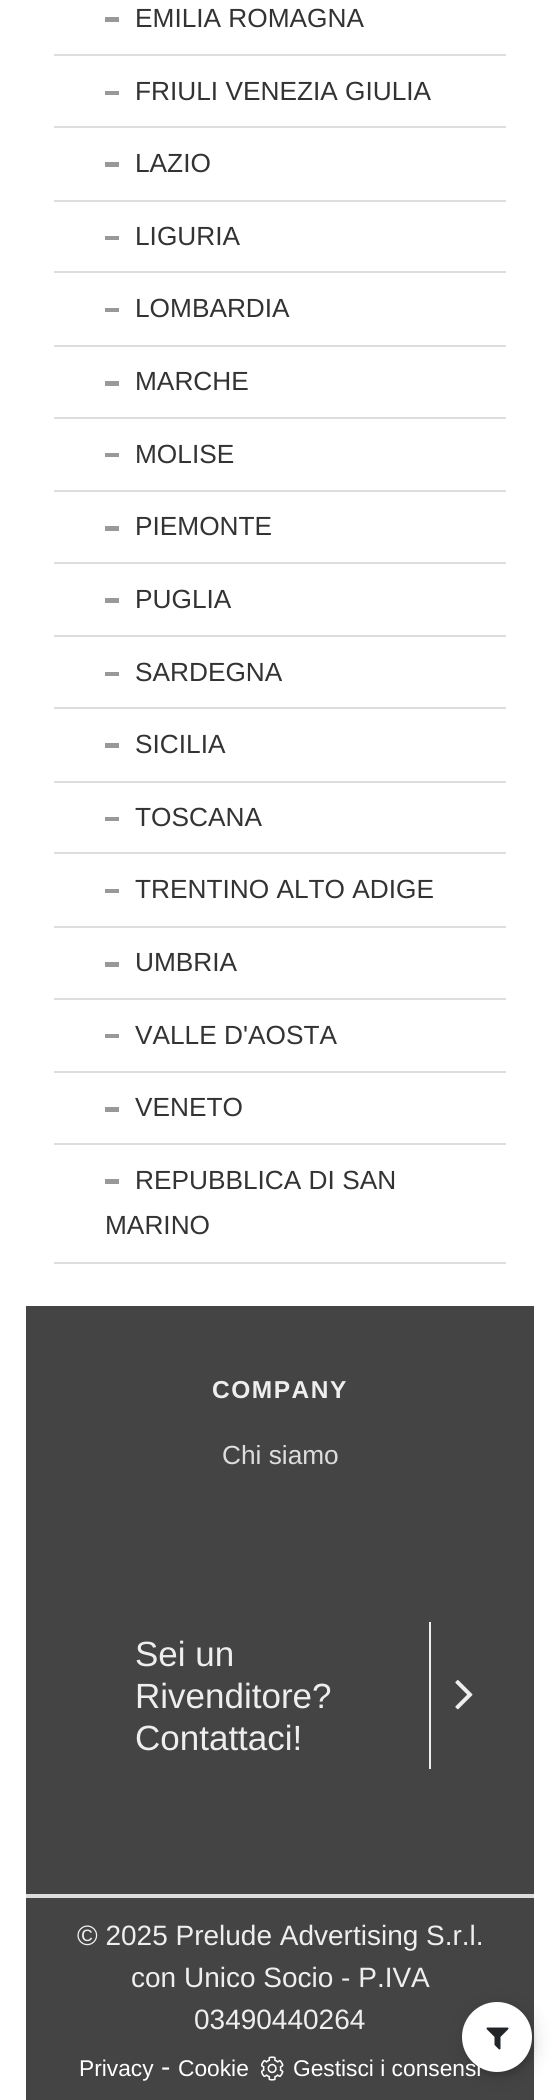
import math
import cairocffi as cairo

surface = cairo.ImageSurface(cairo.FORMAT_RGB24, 560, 2100)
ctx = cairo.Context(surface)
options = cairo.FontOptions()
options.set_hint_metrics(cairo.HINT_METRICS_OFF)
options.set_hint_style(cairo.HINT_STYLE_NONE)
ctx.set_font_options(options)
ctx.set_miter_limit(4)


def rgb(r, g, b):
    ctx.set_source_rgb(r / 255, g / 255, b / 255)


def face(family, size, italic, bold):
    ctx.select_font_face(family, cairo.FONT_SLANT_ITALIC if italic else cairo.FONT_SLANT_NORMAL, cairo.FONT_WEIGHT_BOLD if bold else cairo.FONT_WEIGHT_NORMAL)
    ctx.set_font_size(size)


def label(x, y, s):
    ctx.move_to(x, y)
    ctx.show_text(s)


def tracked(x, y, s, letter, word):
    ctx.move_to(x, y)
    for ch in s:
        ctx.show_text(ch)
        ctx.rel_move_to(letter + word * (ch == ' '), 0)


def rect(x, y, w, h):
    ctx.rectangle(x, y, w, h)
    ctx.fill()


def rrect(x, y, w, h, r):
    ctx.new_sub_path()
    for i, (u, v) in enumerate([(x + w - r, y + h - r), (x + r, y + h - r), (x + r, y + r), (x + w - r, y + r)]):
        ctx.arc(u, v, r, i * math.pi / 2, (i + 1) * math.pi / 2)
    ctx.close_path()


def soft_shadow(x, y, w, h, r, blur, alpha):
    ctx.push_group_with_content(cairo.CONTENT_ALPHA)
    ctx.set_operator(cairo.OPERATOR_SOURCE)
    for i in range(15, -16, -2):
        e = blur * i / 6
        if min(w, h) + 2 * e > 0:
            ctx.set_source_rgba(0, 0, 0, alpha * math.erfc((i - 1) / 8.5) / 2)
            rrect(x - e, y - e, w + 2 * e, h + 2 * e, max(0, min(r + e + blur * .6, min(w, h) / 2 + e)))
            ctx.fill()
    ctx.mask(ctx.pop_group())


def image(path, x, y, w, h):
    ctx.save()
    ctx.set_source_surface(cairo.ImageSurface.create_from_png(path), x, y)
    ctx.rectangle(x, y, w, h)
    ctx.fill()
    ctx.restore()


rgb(255, 255, 255)
ctx.paint()
rgb(221, 221, 221)
rect(54, 54, 452, 2)
rgb(153, 153, 153)
rect(105, 17, 14, 5)
face('Liberation Sans', 26.25, 0, 0)
rgb(51, 51, 51)
label(135, 27, 'EMILIA ROMAGNA')
rgb(221, 221, 221)
rect(54, 126, 452, 2)
rgb(153, 153, 153)
rect(105, 91, 14, 4)
rgb(51, 51, 51)
label(135, 100, 'FRIULI VENEZIA GIULIA')
rgb(221, 221, 221)
rect(54, 200, 452, 2)
rgb(153, 153, 153)
rect(105, 162, 14, 5)
rgb(51, 51, 51)
label(135, 172, 'LAZIO')
rgb(221, 221, 221)
rect(54, 271, 452, 2)
rgb(153, 153, 153)
rect(105, 236, 14, 4)
rgb(51, 51, 51)
label(135, 245, 'LIGURIA')
rgb(221, 221, 221)
rect(54, 345, 452, 2)
rgb(153, 153, 153)
rect(105, 308, 14, 4)
rgb(51, 51, 51)
label(135, 317, 'LOMBARDIA')
rgb(221, 221, 221)
rect(54, 417, 452, 2)
rgb(153, 153, 153)
rect(105, 381, 14, 5)
rgb(51, 51, 51)
label(135, 390, 'MARCHE')
rgb(221, 221, 221)
rect(54, 490, 452, 2)
rgb(153, 153, 153)
rect(105, 453, 14, 4)
rgb(51, 51, 51)
label(135, 463, 'MOLISE')
rgb(221, 221, 221)
rect(54, 562, 452, 2)
rgb(153, 153, 153)
rect(105, 526, 14, 5)
rgb(51, 51, 51)
label(135, 535, 'PIEMONTE')
rgb(221, 221, 221)
rect(54, 635, 452, 2)
rgb(153, 153, 153)
rect(105, 598, 14, 5)
rgb(51, 51, 51)
label(135, 608, 'PUGLIA')
rgb(221, 221, 221)
rect(54, 707, 452, 2)
rgb(153, 153, 153)
rect(105, 672, 14, 4)
rgb(51, 51, 51)
label(135, 681, 'SARDEGNA')
rgb(221, 221, 221)
rect(54, 781, 452, 2)
rgb(153, 153, 153)
rect(105, 743, 14, 5)
rgb(51, 51, 51)
label(135, 753, 'SICILIA')
rgb(221, 221, 221)
rect(54, 852, 452, 2)
rgb(153, 153, 153)
rect(105, 817, 14, 4)
rgb(51, 51, 51)
label(135, 826, 'TOSCANA')
rgb(221, 221, 221)
rect(54, 926, 452, 2)
rgb(153, 153, 153)
rect(105, 889, 14, 4)
rgb(51, 51, 51)
label(135, 898, 'TRENTINO ALTO ADIGE')
rgb(221, 221, 221)
rect(54, 998, 452, 2)
rgb(153, 153, 153)
rect(105, 962, 14, 5)
rgb(51, 51, 51)
label(135, 971, 'UMBRIA')
rgb(221, 221, 221)
rect(54, 1071, 452, 2)
rgb(153, 153, 153)
rect(105, 1034, 14, 4)
rgb(51, 51, 51)
label(135, 1044, 'VALLE D\'AOSTA')
rgb(221, 221, 221)
rect(54, 1143, 452, 2)
rgb(153, 153, 153)
rect(105, 1107, 14, 5)
rgb(51, 51, 51)
label(135, 1116, 'VENETO')
rgb(221, 221, 221)
rect(54, 1262, 452, 2)
rgb(153, 153, 153)
rect(105, 1179, 14, 5)
rgb(51, 51, 51)
label(135, 1189, 'REPUBBLICA DI SAN')
label(105, 1234, 'MARINO')
rgb(68, 68, 68)
rect(26, 1306, 508, 588)
face('Liberation Sans', 24.5, 0, 1)
rgb(238, 238, 238)
tracked(212, 1398, 'COMPANY', 1.5, 0)
face('Liberation Sans', 26.25, 0, 0)
rgb(221, 221, 221)
label(222, 1464, 'Chi siamo')
face('Liberation Sans', 35, 0, 0)
rgb(238, 238, 238)
label(135, 1666, 'Sei un')
label(135, 1708, 'Rivenditore?')
label(135, 1750, 'Contattaci!')
rect(429, 1622, 2, 147)
image('image0.png', 455, 1680, 18, 30)
rgb(68, 68, 68)
rect(26, 1898, 508, 202)
rgb(221, 221, 221)
rect(26, 1894, 508, 4)
face('Liberation Sans', 28, 0, 0)
rgb(238, 238, 238)
label(77, 1945, '© 2025 Prelude Advertising S.r.l.')
label(131, 1987, 'con Unico Socio - P.IVA')
label(194, 2029, '03490440264')
face('Liberation Sans', 22.75, 0, 0)
rgb(255, 255, 255)
label(79, 2076, 'Privacy')
face('Liberation Sans', 28, 0, 0)
label(161, 2076, '-')
face('Liberation Sans', 22.75, 0, 0)
label(178, 2076, 'Cookie')
image('image1.png', 261, 2056, 23, 25)
rgb(0, 0, 0)
soft_shadow(464, 2006, 70, 70, 35, 2.5, 0.12)
soft_shadow(464, 2006, 70, 70, 35, 10.5, 0.14)
rgb(255, 255, 255)
ctx.arc(497, 2037, 35, 0, 2 * math.pi)
ctx.fill()
label(293, 2076, 'Gestisci i consensi')
image('image2.png', 486, 2027, 23, 23)
surface.write_to_png('render.png')
